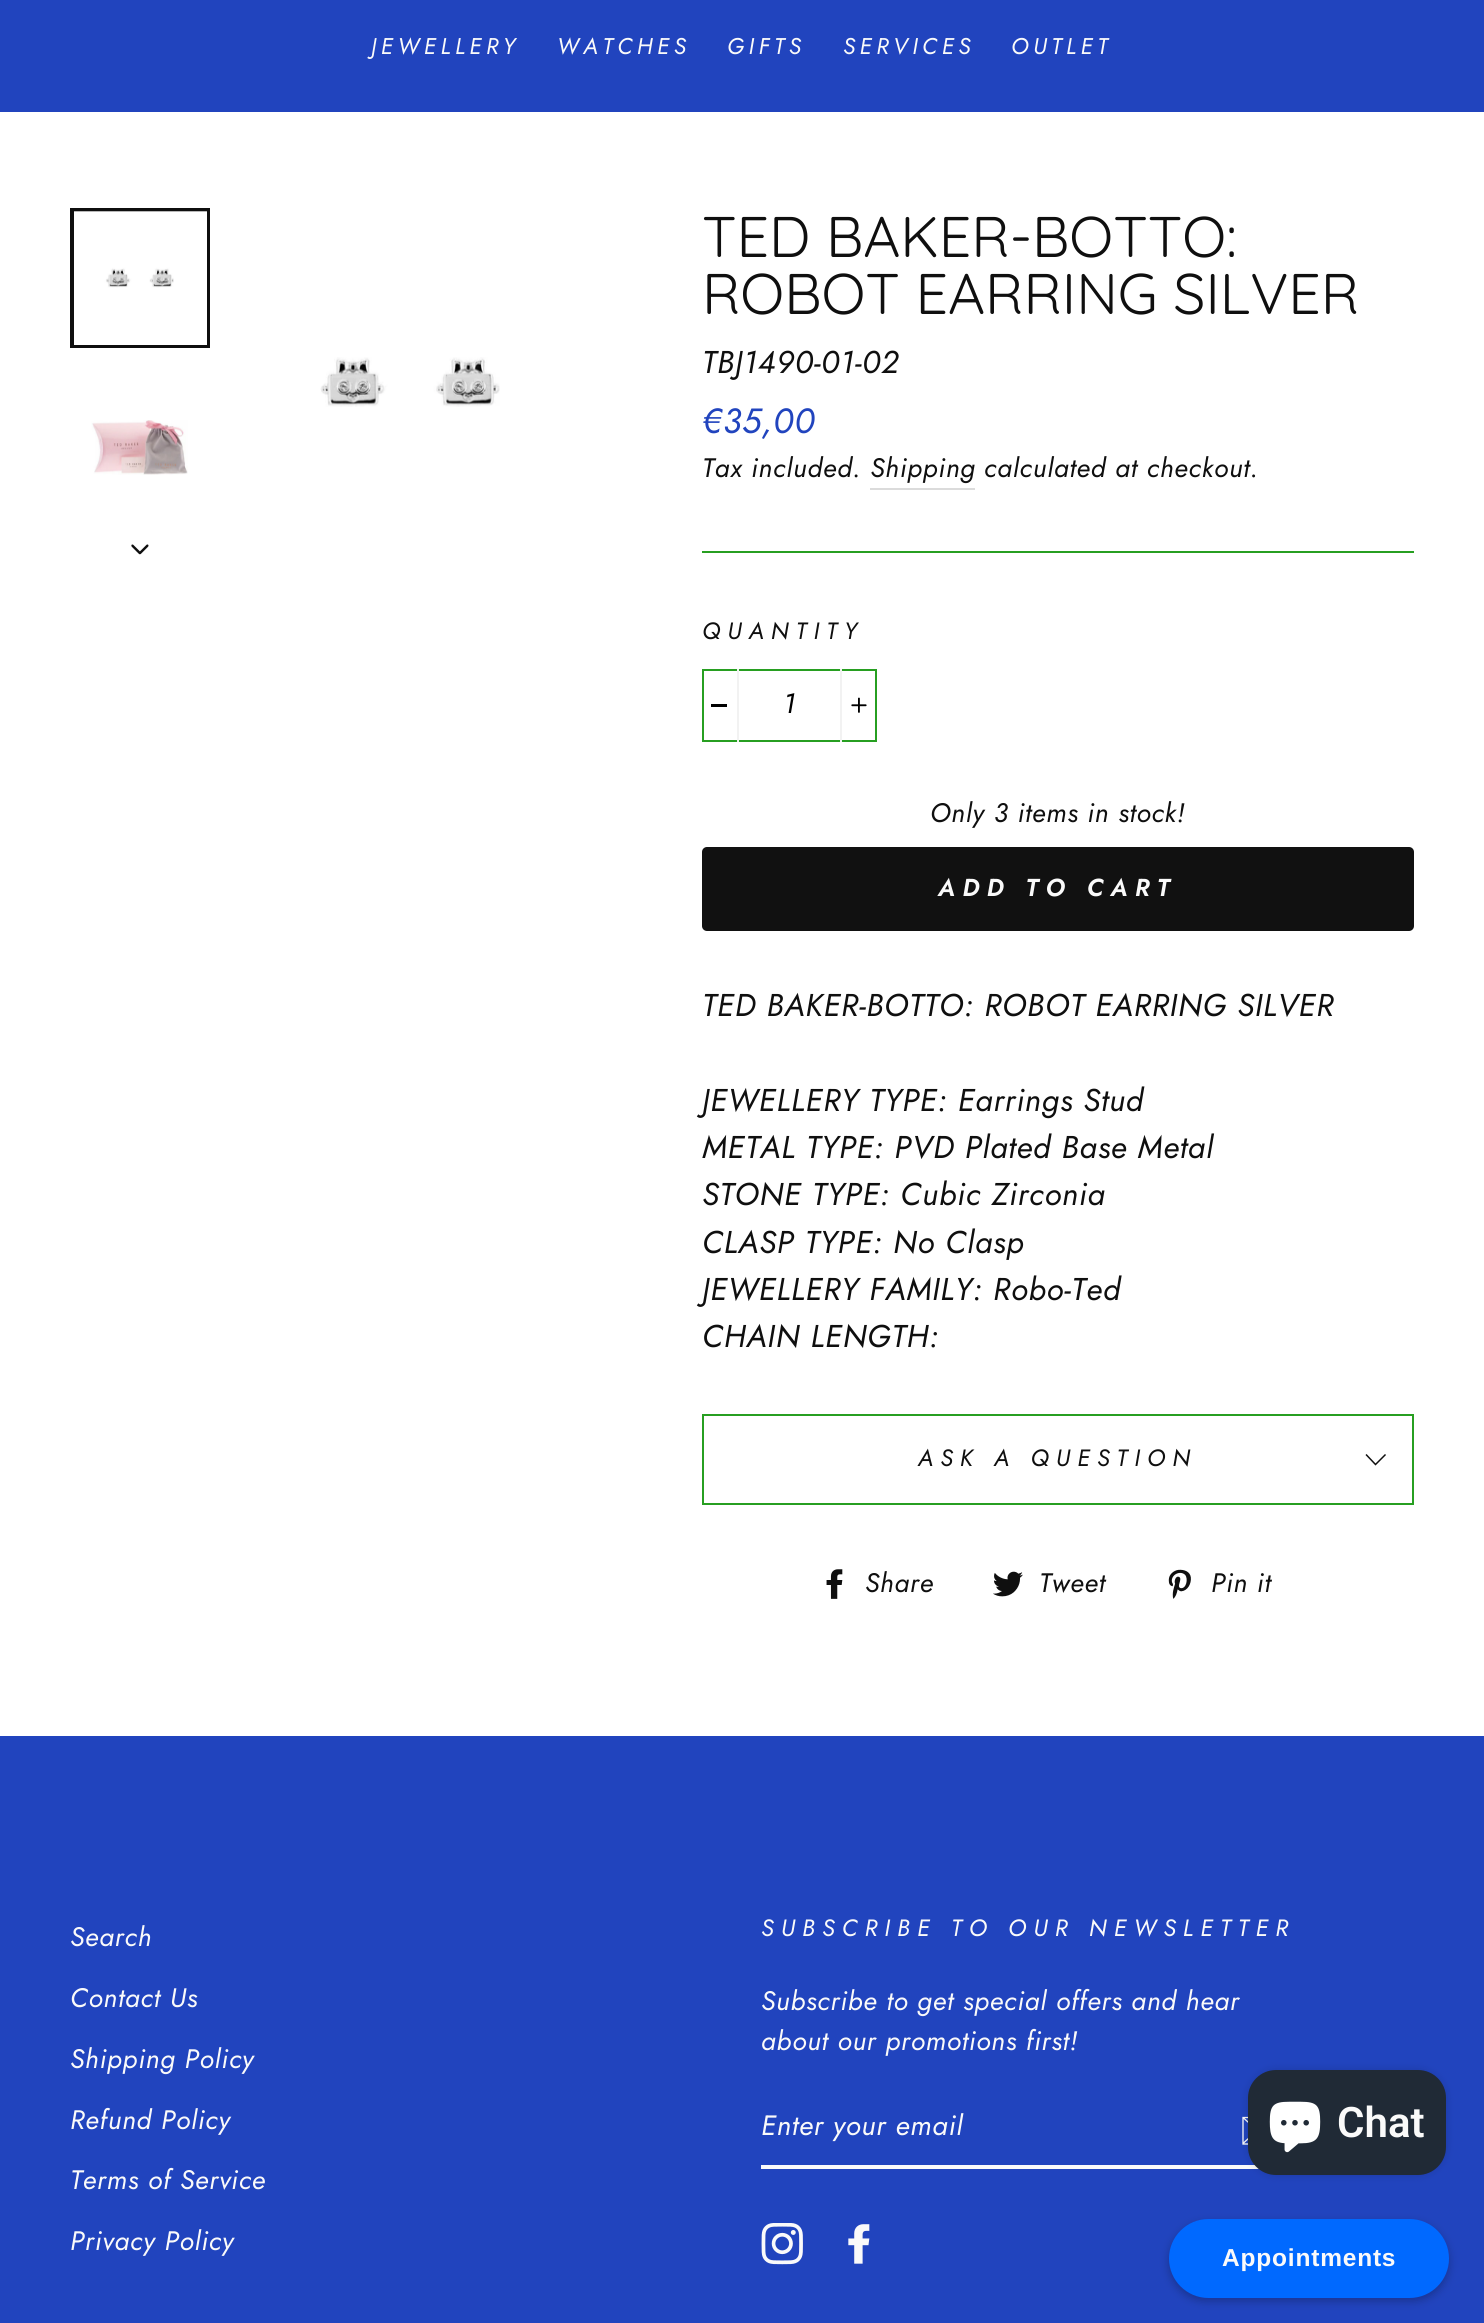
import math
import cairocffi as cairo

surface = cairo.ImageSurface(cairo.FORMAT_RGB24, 1484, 2323)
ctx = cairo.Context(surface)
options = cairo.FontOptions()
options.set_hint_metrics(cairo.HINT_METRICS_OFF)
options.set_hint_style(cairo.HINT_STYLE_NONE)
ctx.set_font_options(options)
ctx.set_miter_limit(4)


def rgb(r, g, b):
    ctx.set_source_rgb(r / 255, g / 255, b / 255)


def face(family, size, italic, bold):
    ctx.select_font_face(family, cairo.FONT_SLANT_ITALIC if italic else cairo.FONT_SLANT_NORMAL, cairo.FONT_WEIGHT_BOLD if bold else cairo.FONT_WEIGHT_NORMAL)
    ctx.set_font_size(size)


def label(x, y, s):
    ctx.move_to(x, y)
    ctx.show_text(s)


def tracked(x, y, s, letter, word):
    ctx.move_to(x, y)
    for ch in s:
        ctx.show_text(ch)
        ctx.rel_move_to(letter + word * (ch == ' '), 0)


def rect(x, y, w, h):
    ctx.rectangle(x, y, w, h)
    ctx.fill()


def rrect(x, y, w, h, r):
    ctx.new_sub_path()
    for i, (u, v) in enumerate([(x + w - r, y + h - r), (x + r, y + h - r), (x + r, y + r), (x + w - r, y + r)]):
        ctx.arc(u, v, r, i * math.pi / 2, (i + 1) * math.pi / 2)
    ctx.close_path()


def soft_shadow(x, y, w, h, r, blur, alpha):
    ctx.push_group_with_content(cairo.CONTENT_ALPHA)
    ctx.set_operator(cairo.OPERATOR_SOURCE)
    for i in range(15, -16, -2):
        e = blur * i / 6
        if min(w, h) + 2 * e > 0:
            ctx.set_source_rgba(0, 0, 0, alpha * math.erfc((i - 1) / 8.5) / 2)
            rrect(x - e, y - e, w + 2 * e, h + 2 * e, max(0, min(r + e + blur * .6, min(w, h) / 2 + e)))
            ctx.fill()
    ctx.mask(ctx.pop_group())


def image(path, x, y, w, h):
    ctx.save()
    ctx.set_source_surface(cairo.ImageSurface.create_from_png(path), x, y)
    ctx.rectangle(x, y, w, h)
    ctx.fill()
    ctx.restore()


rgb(255, 255, 255)
ctx.paint()
rgb(33, 68, 190)
rect(0, 0, 1484, 112)
face('Jost', 22.75, 1, 0)
rgb(250, 250, 250)
tracked(371, 54, 'JEWELLERY', 4.5, 0)
tracked(557, 54, 'WATCHES', 4.5, 0)
tracked(727, 54, 'GIFTS', 4.5, 0)
tracked(843, 54, 'SERVICES', 4.5, 0)
tracked(1011, 54, 'OUTLET', 4.5, 0)
ctx.rectangle(72, 210, 136, 136)
rgb(15, 15, 15)
ctx.set_line_width(4)
ctx.stroke()
rgb(255, 255, 255)
rect(74, 288, 133, 57)
image('image0.png', 74, 211, 133, 77)
image('image1.png', 91, 420, 97, 55)
image('image2.png', 131, 544, 18, 11)
image('image3.png', 320, 357, 180, 50)
face('Quicksand Light', 57.25, 0, 0)
rgb(15, 15, 15)
label(702, 257, 'TED BAKER-BOTTO:')
label(702, 314, 'ROBOT EARRING SILVER')
face('Jost', 31.5, 1, 0)
tracked(702, 373, 'TBJ1490-01-02', 0.8, 0)
face('Jost', 35, 1, 0)
rgb(33, 68, 190)
tracked(702, 433, '€35,00', 0.8, 0)
face('Jost', 26.75, 1, 0)
rgb(15, 15, 15)
tracked(702, 477, 'Tax included. Shipping', 0.8, 0)
tracked(984, 477, 'calculated at checkout.', 0.8, 0)
rgb(219, 219, 219)
rect(870, 488, 105, 2)
rgb(39, 159, 33)
rect(702, 551, 712, 2)
face('Jost', 23.6, 1, 0)
rgb(15, 15, 15)
tracked(702, 639, 'QUANTITY', 7.1, 0)
ctx.rectangle(703, 670, 173, 71)
rgb(39, 159, 33)
ctx.set_line_width(2)
ctx.stroke()
rgb(242, 242, 242)
rect(737, 669, 2, 73)
rgb(0, 0, 0)
rect(711, 704, 16, 3)
face('Jost', 28, 1, 0)
tracked(783, 713, '1', 0.75, 0)
rgb(242, 242, 242)
rect(840, 669, 2, 73)
image('image4.png', 851, 697, 16, 16)
face('Jost', 26.75, 1, 0)
rgb(15, 15, 15)
tracked(930, 822, 'Only 3 items in stock!', 0.8, 0)
rgb(17, 17, 17)
rrect(702, 847, 712, 84, 5)
ctx.fill()
face('Jost SemiBold', 24.5, 1, 0)
rgb(250, 250, 250)
tracked(938, 896, 'ADD TO CART', 7.3, 0)
face('Jost', 31.5, 1, 0)
rgb(15, 15, 15)
tracked(702, 1016, 'TED BAKER-BOTTO: ROBOT EARRING SILVER', 0.8, 0)
tracked(702, 1111, 'JEWELLERY TYPE: Earrings Stud', 0.8, 0)
tracked(702, 1158, 'METAL TYPE: PVD Plated Base Metal', 0.8, 0)
tracked(702, 1205, 'STONE TYPE: Cubic Zirconia', 0.8, 0)
tracked(702, 1253, 'CLASP TYPE: No Clasp', 0.8, 0)
tracked(702, 1300, 'JEWELLERY FAMILY: Robo-Ted', 0.8, 0)
tracked(702, 1347, 'CHAIN LENGTH:', 0.8, 0)
rgb(39, 159, 33)
rect(702, 1503, 712, 2)
rect(702, 1414, 712, 2)
rect(1412, 1414, 2, 89)
rect(702, 1414, 2, 89)
face('Jost', 23.6, 1, 0)
rgb(15, 15, 15)
tracked(918, 1466, 'ASK A QUESTION', 7.1, 0)
ctx.new_path()
ctx.move_to(1366, 1454.5)
ctx.line_to(1375.5, 1464.5)
ctx.line_to(1385.5, 1454.5)
ctx.set_line_width(1.5)
ctx.stroke()
image('image5.png', 826, 1569, 17, 30)
face('Jost', 26.75, 1, 0)
tracked(865, 1592, 'Share', 0.8, 0)
image('image6.png', 993, 1571, 30, 26)
tracked(1039, 1592, 'Tweet', 0.8, 0)
image('image7.png', 1168, 1569, 23, 30)
tracked(1211, 1592, 'Pin it', 0.8, 0)
rgb(33, 68, 190)
rect(0, 1736, 1484, 587)
rgb(250, 250, 250)
tracked(70, 1946, 'Search', 0.8, 0)
tracked(70, 2007, 'Contact Us', 0.8, 0)
tracked(70, 2068, 'Shipping Policy', 0.8, 0)
tracked(70, 2129, 'Refund Policy', 0.8, 0)
tracked(70, 2189, 'Terms of Service', 0.8, 0)
tracked(70, 2250, 'Privacy Policy', 0.8, 0)
face('Jost', 23.6, 1, 0)
tracked(761, 1936, 'SUBSCRIBE TO OUR NEWSLETTER', 7.1, 0)
face('Jost', 26.75, 1, 0)
tracked(761, 2010, 'Subscribe to get special offers and hear', 0.8, 0)
tracked(761, 2050, 'about our promotions first!', 0.8, 0)
rect(761, 2165, 498, 4)
face('Jost', 28, 1, 0)
tracked(761, 2135, 'Enter your email', 0.75, 0)
ctx.new_path()
ctx.move_to(1284, 2144)
ctx.line_to(1243, 2144)
ctx.line_to(1243, 2117.5)
ctx.line_to(1284, 2117.5)
ctx.close_path()
ctx.move_to(1243, 2117.5)
ctx.line_to(1260, 2133)
ctx.line_to(1266.5, 2133)
ctx.line_to(1284, 2117.5)
ctx.move_to(1257, 2130.5)
ctx.line_to(1243.5, 2143)
ctx.move_to(1283.5, 2143.5)
ctx.line_to(1269.5, 2130.5)
ctx.set_line_width(1.3)
ctx.stroke()
image('image8.png', 761, 2223, 42, 42)
image('image9.png', 848, 2224, 22, 40)
rgb(0, 0, 0)
soft_shadow(1248, 2070, 198, 105, 28, 4.5, 0.15)
rgb(32, 42, 54)
rrect(1248, 2070, 198, 105, 28)
ctx.fill()
image('image10.png', 1269, 2101, 52, 52)
face('Roboto SemiBold', 42, 0, 0)
rgb(250, 250, 250)
label(1337, 2137, 'Chat')
rgb(0, 0, 0)
soft_shadow(1169, 2223, 280, 78, 39, 4.5, 0.25)
rgb(0, 105, 255)
rrect(1169, 2219, 280, 79, 39.5)
ctx.fill()
face('Liberation Sans', 24.5, 0, 1)
rgb(250, 250, 250)
tracked(1222, 2266, 'Appointments', 0.8, 0)
surface.write_to_png('render.png')
